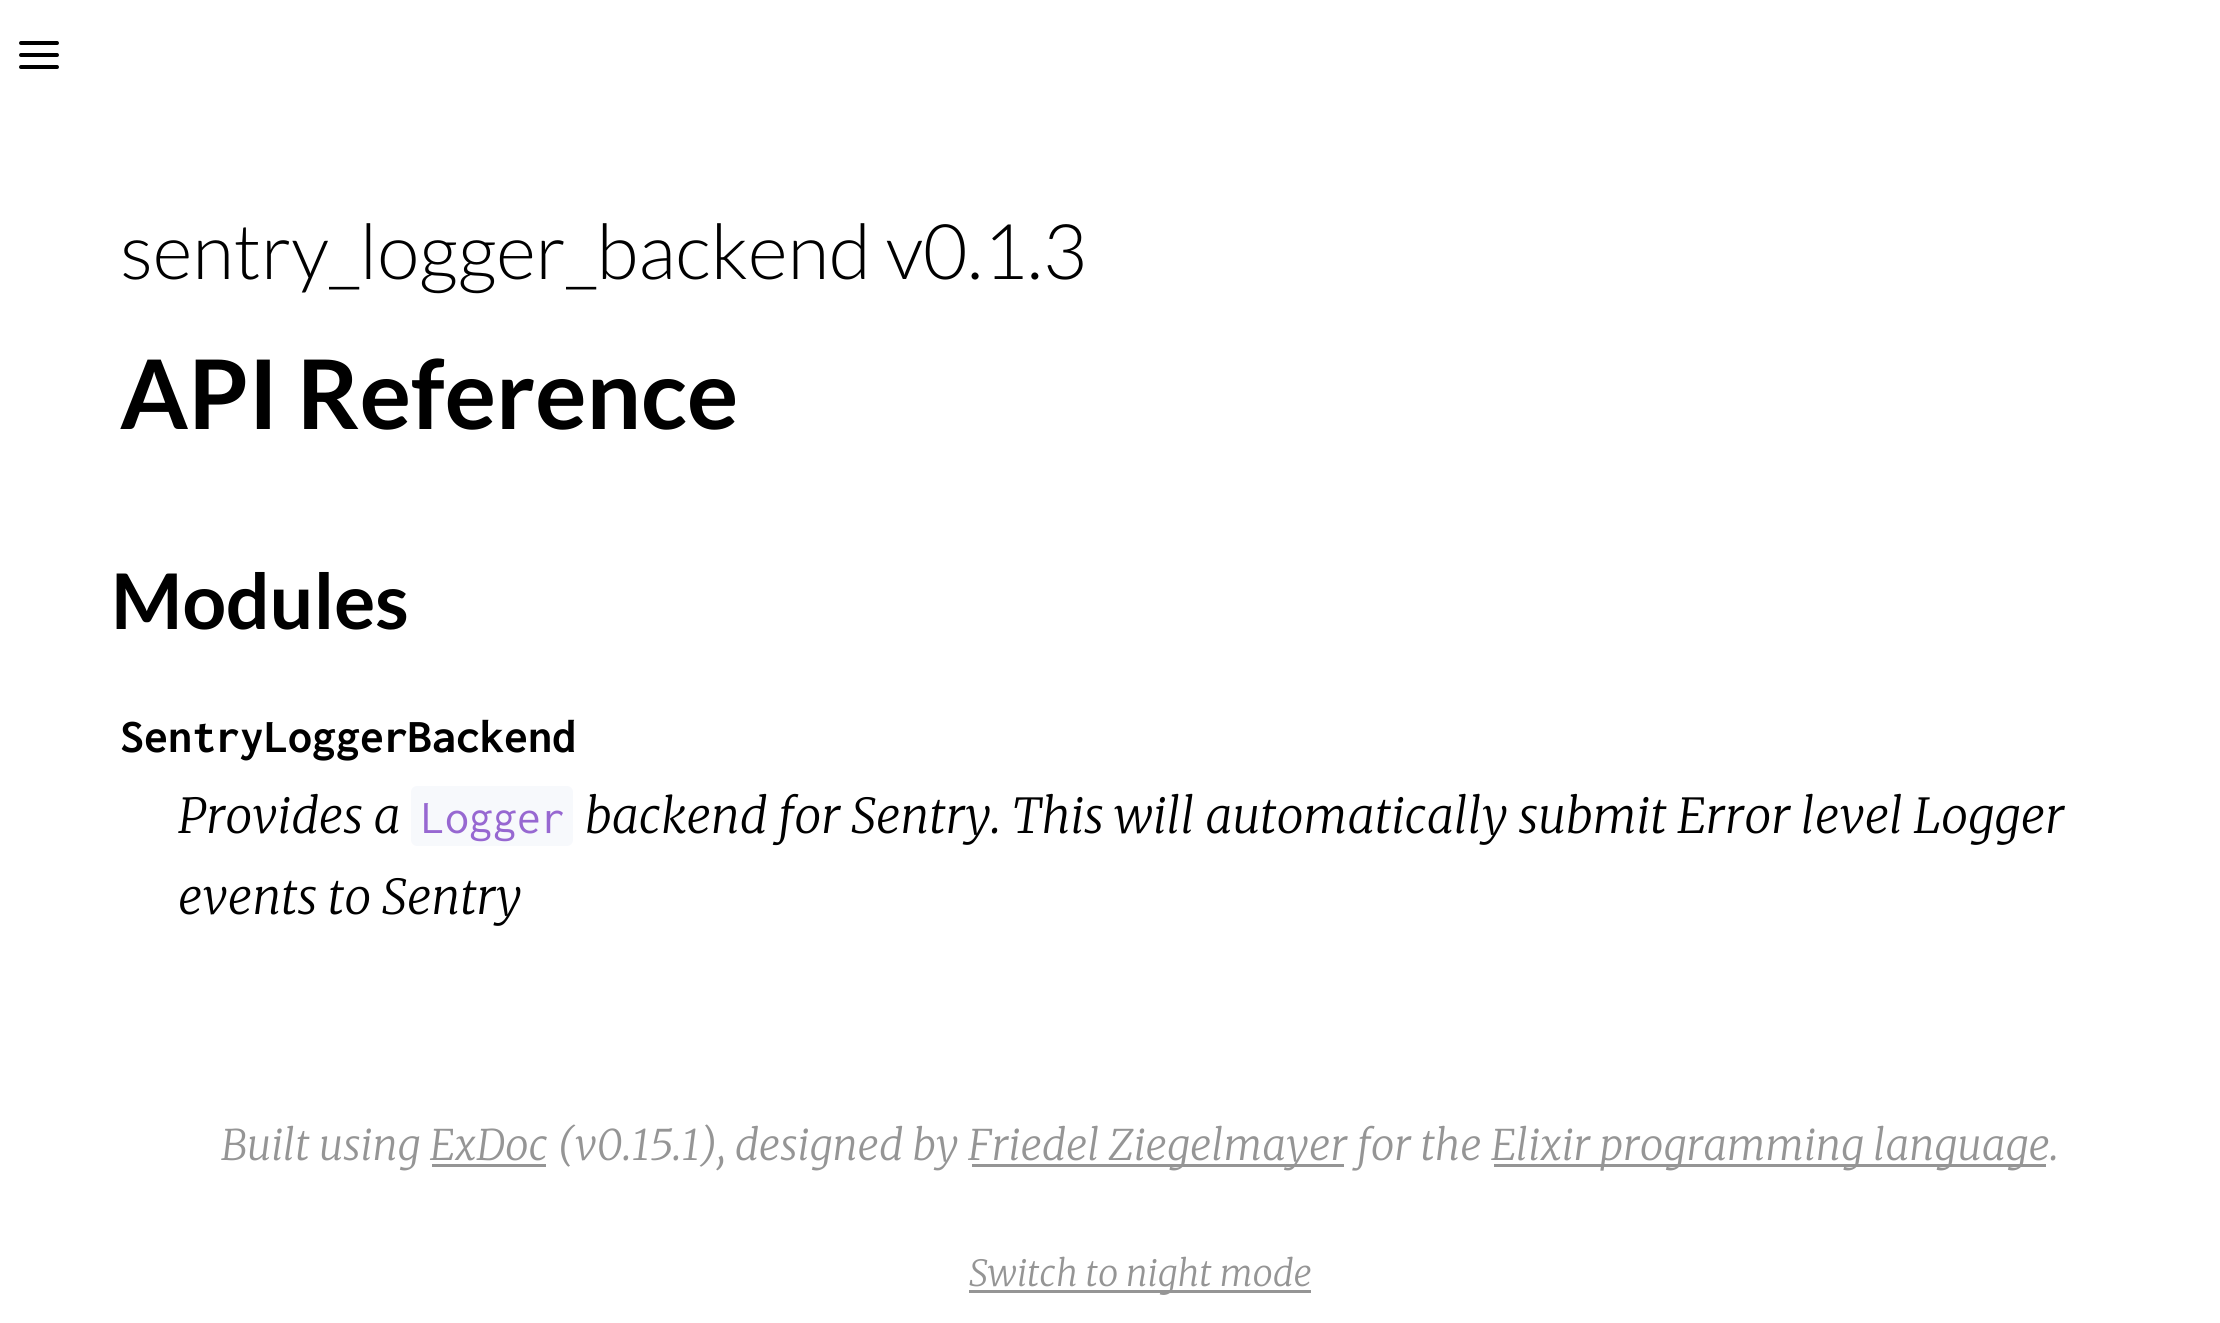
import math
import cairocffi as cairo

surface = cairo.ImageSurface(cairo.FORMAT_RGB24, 2220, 1323)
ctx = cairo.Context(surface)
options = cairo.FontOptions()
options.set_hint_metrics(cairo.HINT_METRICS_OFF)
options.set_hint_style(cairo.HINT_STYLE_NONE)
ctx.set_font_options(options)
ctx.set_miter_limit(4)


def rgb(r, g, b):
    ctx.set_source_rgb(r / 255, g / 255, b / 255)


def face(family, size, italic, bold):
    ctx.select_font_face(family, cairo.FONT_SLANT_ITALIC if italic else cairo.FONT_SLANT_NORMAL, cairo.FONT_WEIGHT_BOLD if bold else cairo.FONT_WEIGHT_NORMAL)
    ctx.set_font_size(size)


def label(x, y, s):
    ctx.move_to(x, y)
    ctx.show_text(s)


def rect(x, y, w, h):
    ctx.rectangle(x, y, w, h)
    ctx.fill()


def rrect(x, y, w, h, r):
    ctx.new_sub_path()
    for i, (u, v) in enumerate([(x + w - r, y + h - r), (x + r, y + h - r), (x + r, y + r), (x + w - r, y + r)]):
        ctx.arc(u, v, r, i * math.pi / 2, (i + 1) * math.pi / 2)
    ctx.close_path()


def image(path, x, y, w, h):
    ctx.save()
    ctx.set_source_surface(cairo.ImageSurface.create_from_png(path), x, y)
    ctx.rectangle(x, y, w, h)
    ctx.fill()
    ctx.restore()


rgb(255, 255, 255)
ctx.paint()
image('image0.png', 19, 41, 40, 28)
face('Lato Light', 76.75, 0, 0)
rgb(0, 0, 0)
label(120, 279, 'sentry_logger_backend v0.1.3')
face('Lato', 96, 0, 1)
label(120, 429, 'API Reference')
face('Lato', 76.75, 0, 1)
label(111, 629, 'Modules')
face('Inconsolata', 48, 0, 1)
label(120, 752, 'SentryLoggerBackend')
face('Merriweather Light', 48, 1, 0)
label(178, 833, 'Provides a')
rgb(247, 249, 252)
rrect(411, 786, 162, 60, 6)
ctx.fill()
face('Inconsolata', 48, 0, 0)
rgb(151, 104, 209)
label(421, 833, 'Logger')
face('Merriweather Light', 48, 1, 0)
rgb(0, 0, 0)
label(585, 833, 'backend for Sentry. This will automatically submit Error level Logger')
label(178, 914, 'events to Sentry')
face('Merriweather Light', 42, 1, 0)
rgb(149, 149, 149)
label(221, 1160, 'Built using ExDoc (v0.15.1), designed by')
rect(429, 1164, 120, 3)
rgb(255, 255, 255)
rect(429, 1164, 3, 3)
rect(546, 1164, 3, 3)
rgb(149, 149, 149)
rect(969, 1164, 378, 3)
rgb(255, 255, 255)
rect(1344, 1164, 3, 3)
rect(969, 1164, 3, 3)
rgb(149, 149, 149)
label(968, 1160, 'Friedel Ziegelmayer for the')
rect(1491, 1164, 558, 3)
rgb(255, 255, 255)
rect(2046, 1164, 3, 3)
rect(1491, 1164, 3, 3)
rgb(149, 149, 149)
label(1491, 1160, 'Elixir programming language.')
rect(969, 1290, 342, 3)
face('Merriweather Light', 36, 1, 0)
label(969, 1286, 'Switch to night mode')
surface.write_to_png('render.png')
